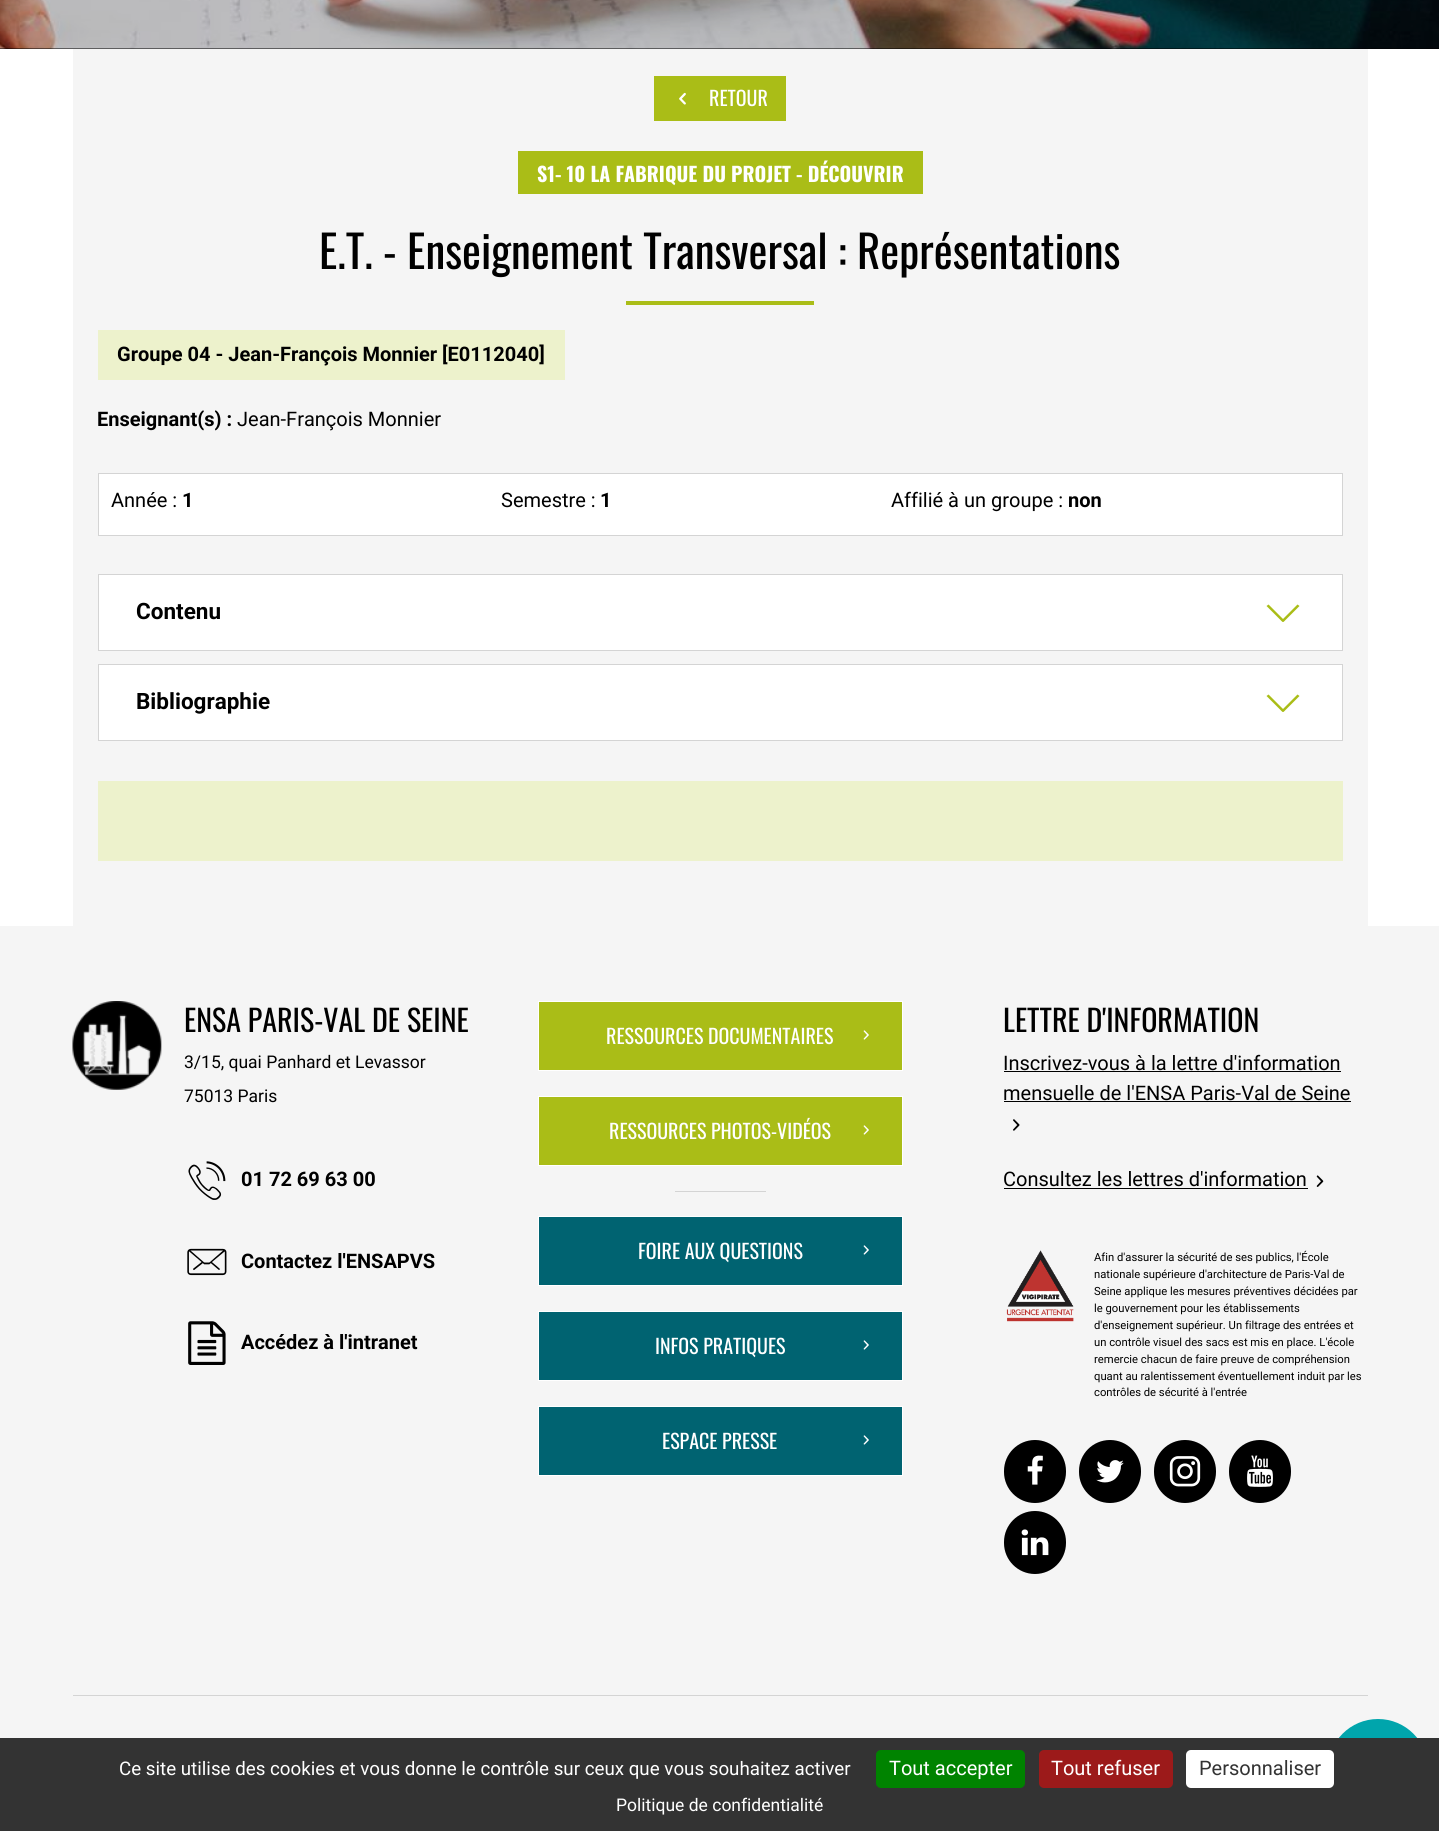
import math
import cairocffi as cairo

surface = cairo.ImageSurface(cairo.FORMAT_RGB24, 1439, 1831)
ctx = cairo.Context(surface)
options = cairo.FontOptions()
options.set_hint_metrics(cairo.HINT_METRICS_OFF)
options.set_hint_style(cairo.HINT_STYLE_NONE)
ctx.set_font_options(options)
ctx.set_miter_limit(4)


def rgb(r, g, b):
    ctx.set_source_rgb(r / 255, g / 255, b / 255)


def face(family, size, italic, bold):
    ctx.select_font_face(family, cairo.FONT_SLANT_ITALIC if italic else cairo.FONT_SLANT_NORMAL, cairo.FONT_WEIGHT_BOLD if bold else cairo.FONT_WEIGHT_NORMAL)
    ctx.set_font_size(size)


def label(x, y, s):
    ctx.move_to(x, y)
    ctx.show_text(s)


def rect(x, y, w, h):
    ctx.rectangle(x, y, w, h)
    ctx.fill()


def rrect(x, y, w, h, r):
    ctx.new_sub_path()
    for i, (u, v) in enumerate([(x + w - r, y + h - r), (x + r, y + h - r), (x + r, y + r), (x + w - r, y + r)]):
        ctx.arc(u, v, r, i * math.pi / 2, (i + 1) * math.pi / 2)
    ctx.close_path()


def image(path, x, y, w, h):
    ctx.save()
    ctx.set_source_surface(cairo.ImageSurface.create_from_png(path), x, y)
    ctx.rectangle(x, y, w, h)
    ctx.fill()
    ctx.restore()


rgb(255, 255, 255)
ctx.paint()
rgb(0, 0, 0)
rect(0, 48, 1439, 1)
image('image0.png', 0, 0, 1439, 49)
rgb(245, 245, 245)
rect(73, 49, 1295, 877)
rgb(170, 189, 23)
rect(654, 76, 132, 45)
image('image1.png', 679, 92, 7, 13)
face('Oswald', 20, 0, 0)
rgb(255, 255, 255)
label(709, 106, 'RETOUR')
rgb(170, 189, 23)
rect(518, 151, 405, 43)
face('Oswald', 20, 0, 1)
rgb(255, 255, 255)
label(537, 182, 'S1- 10 LA FABRIQUE DU PROJET - DÉCOUVRIR')
face('Oswald', 45, 0, 0)
rgb(0, 0, 0)
label(319, 269, 'E.T. - Enseignement Transversal : Représentations')
rgb(170, 189, 23)
rect(626, 301, 188, 4)
rgb(237, 242, 204)
rect(98, 330, 467, 50)
face('Roboto', 20, 0, 1)
rgb(0, 0, 0)
label(117, 361, 'Groupe 04 - Jean-François Monnier [E0112040]')
label(97, 426, 'Enseignant(s) :')
face('Roboto', 20, 0, 0)
label(237, 426, 'Jean-François Monnier')
rgb(255, 255, 255)
ctx.rectangle(98.5, 473.5, 1244, 62)
ctx.fill_preserve()
rgb(212, 212, 212)
ctx.set_line_width(1)
ctx.stroke()
rgb(0, 0, 0)
label(111, 507, 'Année :')
face('Roboto', 20, 0, 1)
label(182, 507, '1')
face('Roboto', 20, 0, 0)
label(501, 507, 'Semestre :')
face('Roboto', 20, 0, 1)
label(600, 507, '1')
face('Roboto', 20, 0, 0)
label(891, 507, 'Affilié à un groupe :')
face('Roboto', 20, 0, 1)
label(1068, 507, 'non')
rgb(255, 255, 255)
ctx.rectangle(98.5, 574.5, 1244, 76)
ctx.fill_preserve()
rgb(212, 212, 212)
ctx.stroke()
face('Roboto', 22.5, 0, 1)
rgb(0, 0, 0)
label(136, 619, 'Contenu')
rgb(170, 189, 23)
ctx.new_path()
ctx.move_to(1268.5, 604.5)
ctx.line_to(1284.5, 620.5)
ctx.line_to(1282.5, 622)
ctx.line_to(1266.5, 606)
ctx.close_path()
ctx.fill()
ctx.new_path()
ctx.move_to(1281.5, 620.5)
ctx.line_to(1297.5, 604.5)
ctx.line_to(1299.5, 606)
ctx.line_to(1283.5, 622)
ctx.close_path()
ctx.fill()
rgb(255, 255, 255)
ctx.rectangle(98.5, 664.5, 1244, 76)
ctx.fill_preserve()
rgb(212, 212, 212)
ctx.stroke()
rgb(0, 0, 0)
label(136, 709, 'Bibliographie')
rgb(170, 189, 23)
ctx.new_path()
ctx.move_to(1268.5, 694.5)
ctx.line_to(1284.5, 710.5)
ctx.line_to(1282.5, 712)
ctx.line_to(1266.5, 696)
ctx.close_path()
ctx.fill()
ctx.new_path()
ctx.move_to(1281.5, 710.5)
ctx.line_to(1297.5, 694.5)
ctx.line_to(1299.5, 696)
ctx.line_to(1283.5, 712)
ctx.close_path()
ctx.fill()
rgb(237, 242, 204)
rect(98, 781, 1245, 80)
rgb(245, 245, 245)
rect(0, 926, 1439, 812)
rgb(0, 165, 172)
ctx.arc(1378, 1769, 50, 0, 2 * math.pi)
ctx.fill()
image('image2.png', 72, 1001, 90, 89)
face('Oswald', 30, 0, 0)
rgb(0, 0, 0)
label(184, 1032, 'ENSA PARIS-VAL DE SEINE')
face('Roboto', 17.5, 0, 0)
label(184, 1068, '3/15, quai Panhard et Levassor')
label(184, 1102, '75013 Paris')
image('image3.png', 188, 1161, 38, 39)
face('Roboto', 20, 0, 1)
label(241, 1186, '01 72 69 63 00')
image('image4.png', 187, 1248, 40, 28)
label(241, 1268, 'Contactez l\'ENSAPVS')
image('image5.png', 188, 1321, 38, 44)
label(241, 1349, 'Accédez à l\'intranet')
rgb(170, 189, 23)
ctx.rectangle(538.5, 1001.5, 364, 69)
ctx.fill_preserve()
rgb(255, 255, 255)
ctx.stroke()
face('Oswald', 20, 0, 0)
label(606, 1044, 'RESSOURCES DOCUMENTAIRES')
image('image6.png', 863, 1030, 6, 10)
rgb(170, 189, 23)
ctx.rectangle(538.5, 1096.5, 364, 69)
ctx.fill_preserve()
rgb(255, 255, 255)
ctx.stroke()
label(609, 1139, 'RESSOURCES PHOTOS-VIDÉOS')
image('image6.png', 863, 1125, 6, 10)
rgb(212, 212, 212)
rect(675, 1191, 91, 1)
rgb(0, 99, 113)
ctx.rectangle(538.5, 1216.5, 364, 69)
ctx.fill_preserve()
rgb(255, 255, 255)
ctx.stroke()
label(638, 1259, 'FOIRE AUX QUESTIONS')
image('image7.png', 863, 1245, 6, 10)
rgb(0, 99, 113)
ctx.rectangle(538.5, 1311.5, 364, 69)
ctx.fill_preserve()
rgb(255, 255, 255)
ctx.stroke()
label(655, 1354, 'INFOS PRATIQUES')
image('image7.png', 863, 1340, 6, 10)
rgb(0, 99, 113)
ctx.rectangle(538.5, 1406.5, 364, 69)
ctx.fill_preserve()
rgb(255, 255, 255)
ctx.stroke()
label(662, 1449, 'ESPACE PRESSE')
image('image7.png', 863, 1435, 6, 10)
face('Oswald', 30, 0, 0)
rgb(0, 0, 0)
label(1003, 1032, 'LETTRE D\'INFORMATION')
face('Roboto', 20, 0, 0)
label(1003, 1070, 'Inscrivez-vous à la lettre d\'information')
rect(1004, 1071, 337, 1)
label(1003, 1100, 'mensuelle de l\'ENSA Paris-Val de Seine')
rect(1004, 1101, 347, 1)
image('image8.png', 1013, 1119, 7, 12)
label(1003, 1186, 'Consultez les lettres d\'information')
rect(1004, 1188, 304, 1)
image('image9.png', 1316, 1175, 8, 12)
image('image10.png', 1006, 1250, 68, 72)
face('Roboto', 11.25, 0, 0)
label(1094, 1261, 'Afin d\'assurer la sécurité de ses publics, l\'École')
label(1094, 1278, 'nationale supérieure d\'architecture de Paris-Val de')
label(1094, 1295, 'Seine applique les mesures préventives décidées par')
label(1094, 1312, 'le gouvernement pour les établissements')
label(1094, 1329, 'd\'enseignement supérieur. Un filtrage des entrées et')
label(1094, 1346, 'un contrôle visuel des sacs est mis en place. L\'école')
label(1094, 1363, 'remercie chacun de faire preuve de compréhension')
label(1094, 1380, 'quant au ralentissement éventuellement induit par les')
label(1094, 1396, 'contrôles de sécurité à l\'entrée')
rrect(1004, 1440, 62, 63, 31)
ctx.fill()
image('image11.png', 1027, 1455, 16, 30)
rrect(1079, 1440, 62, 63, 31)
ctx.fill()
image('image12.png', 1096, 1460, 28, 23)
rrect(1154, 1440, 62, 63, 31)
ctx.fill()
image('image13.png', 1169, 1456, 32, 31)
rrect(1229, 1440, 62, 63, 31)
ctx.fill()
image('image14.png', 1247, 1455, 26, 32)
rrect(1004, 1511, 62, 63, 31)
ctx.fill()
image('image15.png', 1021, 1529, 28, 27)
rgb(212, 212, 212)
rect(73, 1695, 1295, 1)
rgb(51, 51, 51)
rect(0, 1738, 1439, 93)
face('Roboto', 18.75, 0, 0)
rgb(255, 255, 255)
label(119, 1775, 'Ce site utilise des cookies et vous donne le contrôle sur ceux que vous souhaitez activer')
rgb(0, 131, 0)
rrect(876, 1750, 149, 38, 5)
ctx.fill()
face('Roboto', 20, 0, 0)
rgb(255, 255, 255)
label(889, 1775, 'Tout accepter')
rgb(156, 26, 26)
rrect(1039, 1750, 134, 38, 5)
ctx.fill()
rgb(255, 255, 255)
label(1051, 1775, 'Tout refuser')
rrect(1186, 1750, 148, 38, 5)
ctx.fill()
rgb(51, 51, 51)
label(1199, 1775, 'Personnaliser')
face('Roboto', 17.5, 0, 0)
rgb(255, 255, 255)
label(616, 1811, 'Politique de confidentialité')
surface.write_to_png('render.png')
